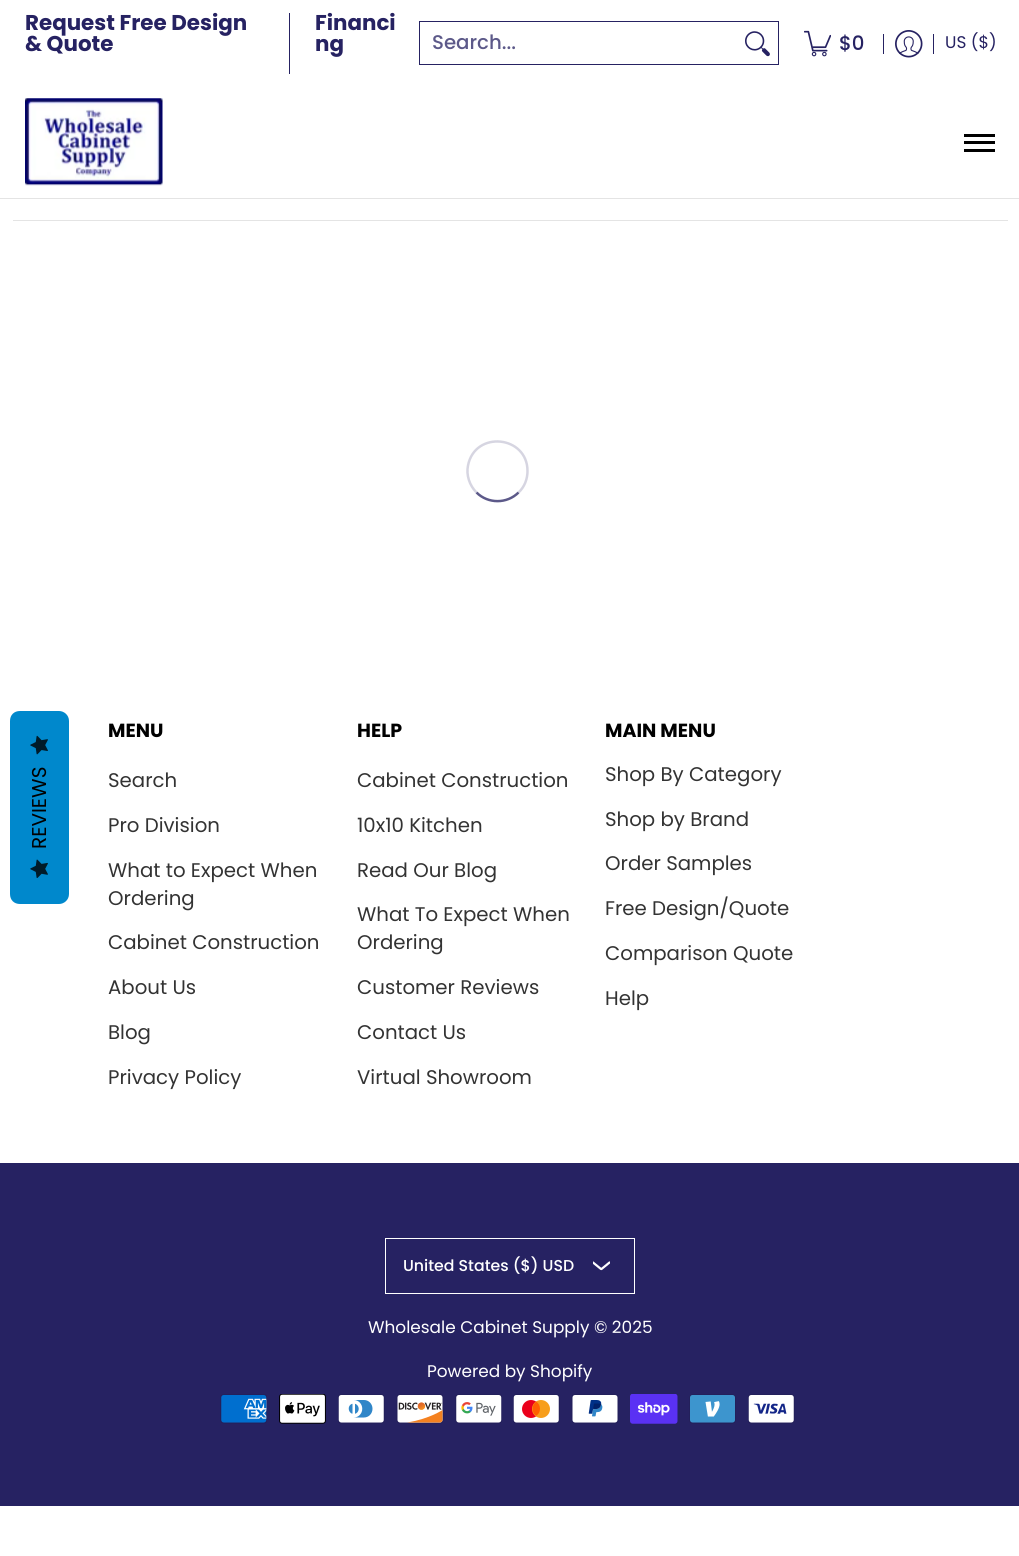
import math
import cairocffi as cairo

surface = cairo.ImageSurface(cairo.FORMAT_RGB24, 1019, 1556)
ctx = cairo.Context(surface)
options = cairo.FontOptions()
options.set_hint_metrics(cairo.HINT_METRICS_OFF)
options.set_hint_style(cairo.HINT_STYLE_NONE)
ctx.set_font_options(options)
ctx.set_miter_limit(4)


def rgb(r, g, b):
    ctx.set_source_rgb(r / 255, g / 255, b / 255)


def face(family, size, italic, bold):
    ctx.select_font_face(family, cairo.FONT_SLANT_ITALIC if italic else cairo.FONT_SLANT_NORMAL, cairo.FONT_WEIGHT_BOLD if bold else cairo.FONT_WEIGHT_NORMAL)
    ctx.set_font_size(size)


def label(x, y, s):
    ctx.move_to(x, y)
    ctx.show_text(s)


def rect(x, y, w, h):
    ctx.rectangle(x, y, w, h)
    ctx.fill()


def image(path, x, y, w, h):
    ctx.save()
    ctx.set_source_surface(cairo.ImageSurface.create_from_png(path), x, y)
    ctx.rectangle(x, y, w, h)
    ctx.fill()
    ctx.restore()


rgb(255, 255, 255)
ctx.paint()
face('Poppins', 21.4, 0, 1)
rgb(38, 34, 98)
label(25, 30, 'Request Free Design')
label(25, 51, '& Quote')
rect(289, 13, 1, 61)
label(315, 30, 'Financi')
label(315, 51, 'ng')
ctx.rectangle(419.5, 21.5, 359, 43)
ctx.set_line_width(1)
ctx.stroke()
face('Poppins Medium', 19.75, 0, 0)
rgb(92, 89, 137)
label(432, 49, 'Search...')
image('image0.png', 745, 31, 25, 26)
image('image1.png', 804, 30, 27, 27)
rgb(38, 34, 98)
label(839, 50, '$0')
rect(883, 34, 1, 20)
image('image2.png', 895, 30, 28, 28)
rect(933, 34, 1, 20)
face('Poppins', 16.9, 0, 0)
label(945, 48, 'US ($)')
rgb(228, 228, 228)
rect(0, 198, 1019, 1)
image('image3.png', 25, 98, 138, 88)
rgb(0, 0, 0)
rect(964, 134, 31, 3)
rect(964, 149, 31, 3)
rect(964, 141, 31, 3)
rgb(228, 228, 228)
rect(13, 220, 995, 1)
ctx.new_path()
ctx.move_to(518.5, 492.5)
ctx.curve_to(507, 504, 488, 504, 476.5, 492.5)
rgb(92, 89, 137)
ctx.set_line_width(2.5)
ctx.stroke()
ctx.new_path()
ctx.move_to(476.5, 492.5)
ctx.curve_to(469.5, 485.5, 466, 475, 468, 465.5)
ctx.curve_to(475, 430, 527.5, 435.5, 527.5, 471)
ctx.curve_to(527.5, 479, 524.5, 487, 518.5, 492.5)
ctx.set_source_rgba(0.361, 0.349, 0.537, 0.25)
ctx.stroke()
rgb(0, 136, 204)
ctx.new_path()
ctx.move_to(10, 894)
ctx.line_to(10, 721)
ctx.curve_to(10, 715, 14, 711, 20, 711)
ctx.line_to(59, 711)
ctx.curve_to(64, 711, 69, 715, 69, 721)
ctx.line_to(69, 894)
ctx.curve_to(69, 900, 64, 904, 59, 904)
ctx.line_to(20, 904)
ctx.curve_to(14, 904, 10, 900, 10, 894)
ctx.close_path()
ctx.fill()
image('image4.png', 30, 735, 18, 20)
face('Poppins', 20, 0, 0)
rgb(0, 0, 0)
ctx.save()
ctx.translate(46, 849)
ctx.rotate(-90 * math.pi / 180)
label(0, 0, 'REVIEWS')
ctx.restore()
image('image5.png', 30, 859, 18, 19)
face('Poppins', 19, 0, 1)
label(108, 737, 'MENU')
face('Poppins', 19.75, 0, 0)
rgb(51, 51, 51)
label(108, 787, 'Search')
label(108, 832, 'Pro Division')
label(108, 877, 'What to Expect When')
label(108, 905, 'Ordering')
label(108, 949, 'Cabinet Construction')
label(108, 994, 'About Us')
label(108, 1039, 'Blog')
label(108, 1084, 'Privacy Policy')
face('Poppins', 19, 0, 1)
rgb(0, 0, 0)
label(357, 737, 'HELP')
face('Poppins', 19.75, 0, 0)
rgb(51, 51, 51)
label(357, 787, 'Cabinet Construction')
label(357, 832, '10x10 Kitchen')
label(357, 877, 'Read Our Blog')
label(357, 921, 'What To Expect When')
label(357, 949, 'Ordering')
label(357, 994, 'Customer Reviews')
label(357, 1039, 'Contact Us')
label(357, 1084, 'Virtual Showroom')
face('Poppins', 19, 0, 1)
rgb(0, 0, 0)
label(605, 737, 'MAIN MENU')
face('Poppins', 19.75, 0, 0)
rgb(51, 51, 51)
label(605, 781, 'Shop By Category')
label(605, 826, 'Shop by Brand')
label(605, 870, 'Order Samples')
label(605, 915, 'Free Design/Quote')
label(605, 960, 'Comparison Quote')
label(605, 1005, 'Help')
rgb(38, 34, 98)
rect(0, 1163, 1019, 343)
ctx.rectangle(385.5, 1238.5, 249, 55)
rgb(255, 255, 255)
ctx.set_line_width(1)
ctx.stroke()
face('Poppins Medium', 15.75, 0, 0)
label(403, 1271, 'United States ($) USD')
ctx.save()
ctx.rectangle(593, 1256, 17, 18)
ctx.clip()
ctx.new_path()
ctx.move_to(593, 1262.5)
ctx.line_to(601, 1269)
ctx.line_to(601.5, 1269)
ctx.line_to(609.5, 1262.5)
ctx.set_line_width(2.2)
ctx.set_line_cap(cairo.LINE_CAP_ROUND)
ctx.set_line_join(cairo.LINE_JOIN_ROUND)
ctx.stroke()
ctx.restore()
face('Poppins', 16.9, 0, 0)
label(368, 1333, 'Wholesale Cabinet Supply © 2025')
label(427, 1377, 'Powered by Shopify')
image('image6.png', 220, 1394, 47, 30)
image('image7.png', 279, 1394, 47, 30)
image('image8.png', 338, 1394, 47, 30)
image('image9.png', 396, 1394, 48, 30)
image('image10.png', 455, 1394, 47, 30)
image('image11.png', 513, 1394, 47, 30)
image('image12.png', 571, 1394, 48, 30)
image('image13.png', 630, 1394, 48, 30)
image('image14.png', 689, 1394, 47, 30)
image('image15.png', 748, 1394, 47, 30)
surface.write_to_png('render.png')
